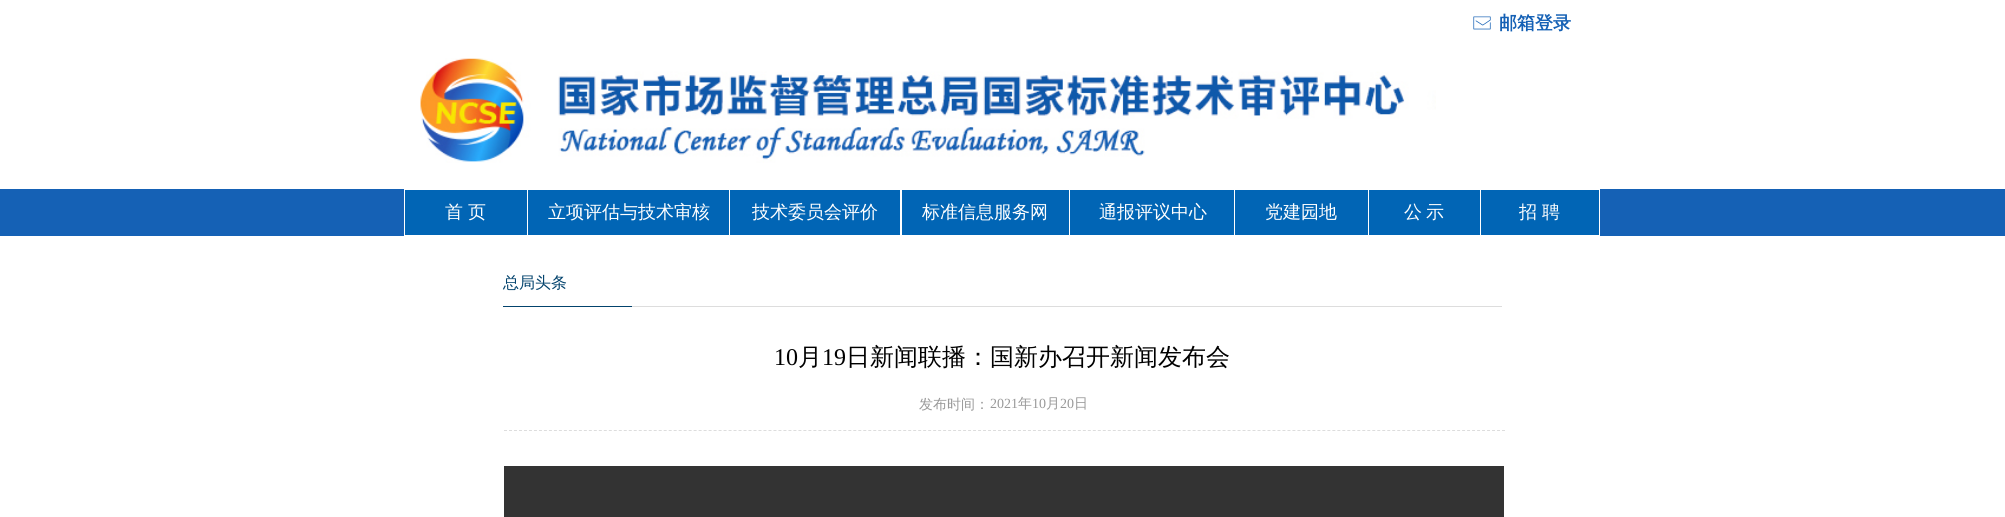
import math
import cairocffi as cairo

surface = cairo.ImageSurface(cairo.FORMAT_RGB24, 2005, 517)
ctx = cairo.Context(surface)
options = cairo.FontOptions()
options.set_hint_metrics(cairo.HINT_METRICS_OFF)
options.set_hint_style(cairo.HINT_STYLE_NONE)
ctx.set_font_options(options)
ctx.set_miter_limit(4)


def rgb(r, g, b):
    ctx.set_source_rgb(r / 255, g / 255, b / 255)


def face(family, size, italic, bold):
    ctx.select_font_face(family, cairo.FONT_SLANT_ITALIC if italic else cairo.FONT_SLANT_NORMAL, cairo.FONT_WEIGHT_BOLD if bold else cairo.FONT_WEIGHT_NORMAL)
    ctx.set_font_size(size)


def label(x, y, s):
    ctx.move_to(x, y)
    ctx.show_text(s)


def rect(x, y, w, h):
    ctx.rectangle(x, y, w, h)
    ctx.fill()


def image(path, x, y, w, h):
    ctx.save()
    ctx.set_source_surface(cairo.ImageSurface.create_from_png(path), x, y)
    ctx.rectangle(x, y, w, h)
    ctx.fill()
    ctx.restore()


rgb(255, 255, 255)
ctx.paint()
image('image0.png', 1473, 16, 18, 14)
face('WenQuanYi Zen Hei', 18, 0, 1)
rgb(21, 97, 181)
label(1499, 29, '邮箱登录')
image('image1.png', 420, 58, 1016, 105)
rect(0, 189, 2005, 47)
rgb(1, 101, 181)
ctx.rectangle(404.5, 189.5, 123, 46)
ctx.fill_preserve()
rgb(255, 255, 255)
ctx.set_line_width(1)
ctx.stroke()
face('WenQuanYi Zen Hei Medium', 18, 0, 0)
label(445, 218, '首')
label(468, 218, '页')
rgb(1, 101, 181)
rect(528, 190, 201, 45)
ctx.rectangle(527.5, 189.5, 203, 46)
rgb(255, 255, 255)
ctx.stroke()
label(548, 218, '立项评估与技术审核')
rgb(1, 101, 181)
ctx.rectangle(729.5, 189.5, 171, 46)
ctx.fill_preserve()
rgb(255, 255, 255)
ctx.stroke()
label(752, 218, '技术委员会评价')
rgb(1, 101, 181)
ctx.rectangle(901.5, 189.5, 168, 46)
ctx.fill_preserve()
rgb(255, 255, 255)
ctx.stroke()
label(922, 218, '标准信息服务网')
rgb(1, 101, 181)
rect(1070, 190, 164, 45)
ctx.rectangle(1069.5, 189.5, 167, 46)
rgb(255, 255, 255)
ctx.stroke()
label(1099, 218, '通报评议中心')
rgb(1, 101, 181)
ctx.rectangle(1234.5, 189.5, 134, 46)
ctx.fill_preserve()
rgb(255, 255, 255)
ctx.stroke()
label(1265, 218, '党建园地')
rgb(1, 101, 181)
ctx.rectangle(1368.5, 189.5, 112, 46)
ctx.fill_preserve()
rgb(255, 255, 255)
ctx.stroke()
label(1404, 218, '公')
label(1426, 218, '示')
rgb(1, 101, 181)
ctx.rectangle(1480.5, 189.5, 119, 46)
ctx.fill_preserve()
rgb(255, 255, 255)
ctx.stroke()
label(1519, 218, '招')
label(1542, 218, '聘')
face('WenQuanYi Zen Hei Medium', 16, 0, 0)
rgb(3, 67, 109)
label(503, 288, '总局头条')
rect(503, 306, 129, 1)
rgb(221, 221, 221)
rect(632, 306, 870, 1)
face('Liberation Serif', 24, 0, 0)
rgb(0, 0, 0)
label(774, 365, '10')
face('WenQuanYi Zen Hei Medium', 24, 0, 0)
label(798, 365, '月')
face('Liberation Serif', 24, 0, 0)
label(822, 365, '19')
face('WenQuanYi Zen Hei Medium', 24, 0, 0)
label(846, 365, '日新闻联播：国新办召开新闻发布会')
face('WenQuanYi Zen Hei Medium', 14, 0, 0)
rgb(153, 153, 153)
label(919, 409, '发布时间：')
face('Liberation Serif', 14, 0, 0)
label(990, 408, '2021')
face('WenQuanYi Zen Hei Medium', 14, 0, 0)
label(1018, 408, '年')
face('Liberation Serif', 14, 0, 0)
label(1032, 408, '10')
face('WenQuanYi Zen Hei Medium', 14, 0, 0)
label(1046, 408, '月')
face('Liberation Serif', 14, 0, 0)
label(1060, 408, '20')
face('WenQuanYi Zen Hei Medium', 14, 0, 0)
label(1074, 408, '日')
ctx.new_path()
ctx.move_to(504, 430.5)
ctx.line_to(1505, 430.5)
rgb(221, 221, 221)
ctx.set_dash([3, 1.99])
ctx.stroke()
rgb(51, 51, 51)
rect(504, 466, 1000, 51)
surface.write_to_png('render.png')
